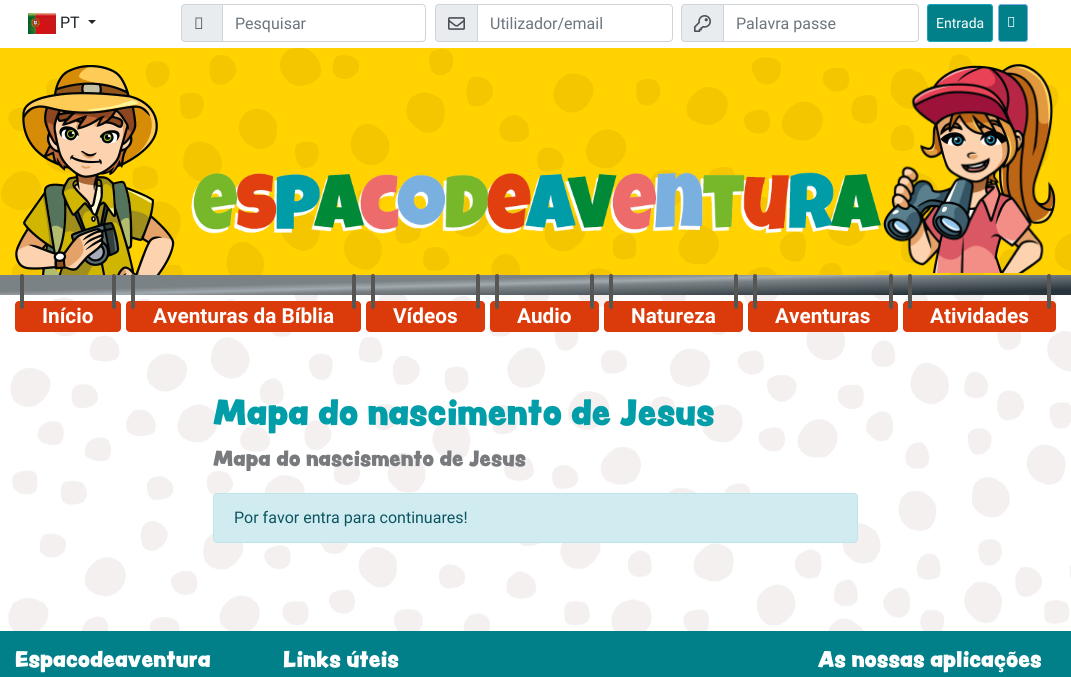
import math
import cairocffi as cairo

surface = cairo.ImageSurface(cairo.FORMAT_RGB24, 1071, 677)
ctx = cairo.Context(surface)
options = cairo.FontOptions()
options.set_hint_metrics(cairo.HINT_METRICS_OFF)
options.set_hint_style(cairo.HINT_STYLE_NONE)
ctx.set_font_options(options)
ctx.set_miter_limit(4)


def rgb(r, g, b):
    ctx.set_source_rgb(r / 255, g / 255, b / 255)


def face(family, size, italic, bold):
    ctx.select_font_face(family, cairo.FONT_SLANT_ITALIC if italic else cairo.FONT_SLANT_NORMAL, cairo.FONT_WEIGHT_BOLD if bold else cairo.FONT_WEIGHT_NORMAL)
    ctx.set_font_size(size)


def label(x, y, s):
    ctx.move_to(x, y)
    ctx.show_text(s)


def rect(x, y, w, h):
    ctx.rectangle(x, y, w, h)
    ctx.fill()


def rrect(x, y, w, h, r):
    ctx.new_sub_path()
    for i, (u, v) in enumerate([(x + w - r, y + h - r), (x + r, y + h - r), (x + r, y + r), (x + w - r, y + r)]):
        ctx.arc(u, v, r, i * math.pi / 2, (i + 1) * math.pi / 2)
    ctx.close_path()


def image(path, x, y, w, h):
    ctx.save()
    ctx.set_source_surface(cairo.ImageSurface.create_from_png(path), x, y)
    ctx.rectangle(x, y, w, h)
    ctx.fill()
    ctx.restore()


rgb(255, 255, 255)
ctx.paint()
image('image0.png', 8, 295, 1063, 336)
image('image1.png', 28, 13, 28, 21)
face('Roboto', 16, 0, 0)
rgb(33, 37, 41)
label(60, 28, 'PT')
ctx.new_path()
ctx.move_to(88, 20)
ctx.line_to(96, 20)
ctx.line_to(92, 24)
ctx.close_path()
ctx.fill()
rgb(233, 236, 239)
ctx.new_path()
ctx.move_to(185, 4.5)
ctx.line_to(222.5, 4.5)
ctx.line_to(222.5, 41.5)
ctx.line_to(185, 41.5)
ctx.curve_to(183, 41.5, 181.5, 40, 181.5, 38)
ctx.line_to(181.5, 8)
ctx.curve_to(181.5, 6, 183, 4.5, 185, 4.5)
ctx.close_path()
ctx.fill_preserve()
rgb(206, 212, 218)
ctx.set_line_width(1)
ctx.stroke()
image('image2.png', 195, 17, 8, 12)
ctx.new_path()
ctx.move_to(222.5, 4.5)
ctx.line_to(422, 4.5)
ctx.curve_to(424, 4.5, 425.5, 6, 425.5, 8)
ctx.line_to(425.5, 38)
ctx.curve_to(425.5, 40, 424, 41.5, 422, 41.5)
ctx.line_to(222.5, 41.5)
ctx.close_path()
ctx.stroke()
rgb(108, 117, 125)
label(235, 29, 'Pesquisar')
rgb(233, 236, 239)
ctx.new_path()
ctx.move_to(439, 4.5)
ctx.line_to(477.5, 4.5)
ctx.line_to(477.5, 41.5)
ctx.line_to(439, 41.5)
ctx.curve_to(437, 41.5, 435.5, 40, 435.5, 38)
ctx.line_to(435.5, 8)
ctx.curve_to(435.5, 6, 437, 4.5, 439, 4.5)
ctx.close_path()
ctx.fill_preserve()
rgb(206, 212, 218)
ctx.stroke()
image('image3.png', 448, 17, 17, 13)
ctx.new_path()
ctx.move_to(477.5, 4.5)
ctx.line_to(669, 4.5)
ctx.curve_to(671, 4.5, 672.5, 6, 672.5, 8)
ctx.line_to(672.5, 38)
ctx.curve_to(672.5, 40, 671, 41.5, 669, 41.5)
ctx.line_to(477.5, 41.5)
ctx.close_path()
ctx.stroke()
rgb(108, 117, 125)
label(490, 29, 'Utilizador/email')
rgb(233, 236, 239)
ctx.new_path()
ctx.move_to(685, 4.5)
ctx.line_to(723.5, 4.5)
ctx.line_to(723.5, 41.5)
ctx.line_to(685, 41.5)
ctx.curve_to(683, 41.5, 681.5, 40, 681.5, 38)
ctx.line_to(681.5, 8)
ctx.curve_to(681.5, 6, 683, 4.5, 685, 4.5)
ctx.close_path()
ctx.fill_preserve()
rgb(206, 212, 218)
ctx.stroke()
image('image4.png', 694, 15, 17, 17)
ctx.new_path()
ctx.move_to(723.5, 4.5)
ctx.line_to(915, 4.5)
ctx.curve_to(917, 4.5, 918.5, 6, 918.5, 8)
ctx.line_to(918.5, 38)
ctx.curve_to(918.5, 40, 917, 41.5, 915, 41.5)
ctx.line_to(723.5, 41.5)
ctx.close_path()
ctx.stroke()
rgb(108, 117, 125)
label(736, 29, 'Palavra passe')
rgb(1, 128, 137)
rrect(927.5, 4.5, 65, 37, 2.5)
ctx.fill_preserve()
rgb(23, 162, 184)
ctx.stroke()
face('Roboto', 14, 0, 0)
rgb(255, 255, 255)
label(936, 28, 'Entrada')
rgb(1, 128, 137)
rrect(998.5, 4.5, 29, 37, 2.5)
ctx.fill_preserve()
rgb(122, 176, 224)
ctx.stroke()
image('image5.png', 1008, 17, 7, 10)
rgb(255, 210, 0)
rect(0, 48, 1071, 227)
image('image6.png', 1, 48, 1070, 227)
image('image7.png', 15, 65, 160, 210)
image('image8.png', 191, 172, 691, 62)
image('image9.png', 883, 64, 173, 209)
gradient = cairo.LinearGradient(535, 266, 536, 304)
gradient.add_color_stop_rgba(0.3, 0.482, 0.51, 0.525, 1)
gradient.add_color_stop_rgba(0.45, 0.627, 0.663, 0.682, 1)
gradient.add_color_stop_rgba(0.55, 0.482, 0.51, 0.525, 1)
gradient.add_color_stop_rgba(1, 0.157, 0.204, 0.231, 1)
ctx.set_source(gradient)
rect(0, 275, 1071, 20)
rgb(219, 59, 10)
rrect(15, 301, 106, 31, 4)
ctx.fill()
rgb(86, 86, 85)
rrect(20, 274, 4, 35, 2)
ctx.fill()
rrect(112, 274, 4, 35, 2)
ctx.fill()
face('Roboto', 20.75, 0, 1)
rgb(255, 255, 255)
label(42, 323, 'Início')
rgb(219, 59, 10)
rrect(126, 301, 235, 31, 4)
ctx.fill()
rgb(86, 86, 85)
rrect(131, 274, 4, 35, 2)
ctx.fill()
rrect(352, 274, 4, 35, 2)
ctx.fill()
rgb(255, 255, 255)
label(153, 323, 'Aventuras da Bíblia')
rgb(219, 59, 10)
rrect(366, 301, 119, 31, 4)
ctx.fill()
rgb(86, 86, 85)
rrect(371, 274, 4, 35, 2)
ctx.fill()
rrect(476, 274, 4, 35, 2)
ctx.fill()
rgb(255, 255, 255)
label(393, 323, 'Vídeos')
rgb(219, 59, 10)
rrect(490, 301, 109, 31, 4)
ctx.fill()
rgb(86, 86, 85)
rrect(495, 274, 4, 35, 2)
ctx.fill()
rrect(590, 274, 4, 35, 2)
ctx.fill()
rgb(255, 255, 255)
label(517, 323, 'Audio')
rgb(219, 59, 10)
rrect(604, 301, 139, 31, 4)
ctx.fill()
rgb(86, 86, 85)
rrect(609, 274, 4, 35, 2)
ctx.fill()
rrect(734, 274, 4, 35, 2)
ctx.fill()
rgb(255, 255, 255)
label(631, 323, 'Natureza')
rgb(219, 59, 10)
rrect(748, 301, 150, 31, 4)
ctx.fill()
rgb(86, 86, 85)
rrect(753, 274, 4, 35, 2)
ctx.fill()
rrect(889, 274, 4, 35, 2)
ctx.fill()
rgb(255, 255, 255)
label(775, 323, 'Aventuras')
rgb(219, 59, 10)
rrect(903, 301, 153, 31, 4)
ctx.fill()
rgb(86, 86, 85)
rrect(908, 274, 4, 35, 2)
ctx.fill()
rrect(1047, 274, 4, 35, 2)
ctx.fill()
rgb(255, 255, 255)
label(930, 323, 'Atividades')
face('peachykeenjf', 32, 0, 0)
rgb(1, 157, 168)
label(213, 425, 'Mapa do nascimento de Jesus')
face('peachykeenjf', 19.25, 0, 0)
rgb(120, 122, 125)
label(213, 466, 'Mapa do nascismento de Jesus')
rgb(209, 236, 241)
rrect(213.5, 493.5, 644, 49, 3.5)
ctx.fill_preserve()
rgb(190, 229, 235)
ctx.stroke()
face('Roboto', 16, 0, 0)
rgb(12, 84, 96)
label(234, 523, 'Por favor entra para continuares!')
rgb(1, 128, 137)
rect(0, 631, 1071, 46)
face('peachykeenjf', 20, 0, 0)
rgb(255, 255, 255)
label(15, 667, 'Espacodeaventura')
label(283, 667, 'Links úteis')
label(818, 667, 'As nossas aplicações')
surface.write_to_png('render.png')
